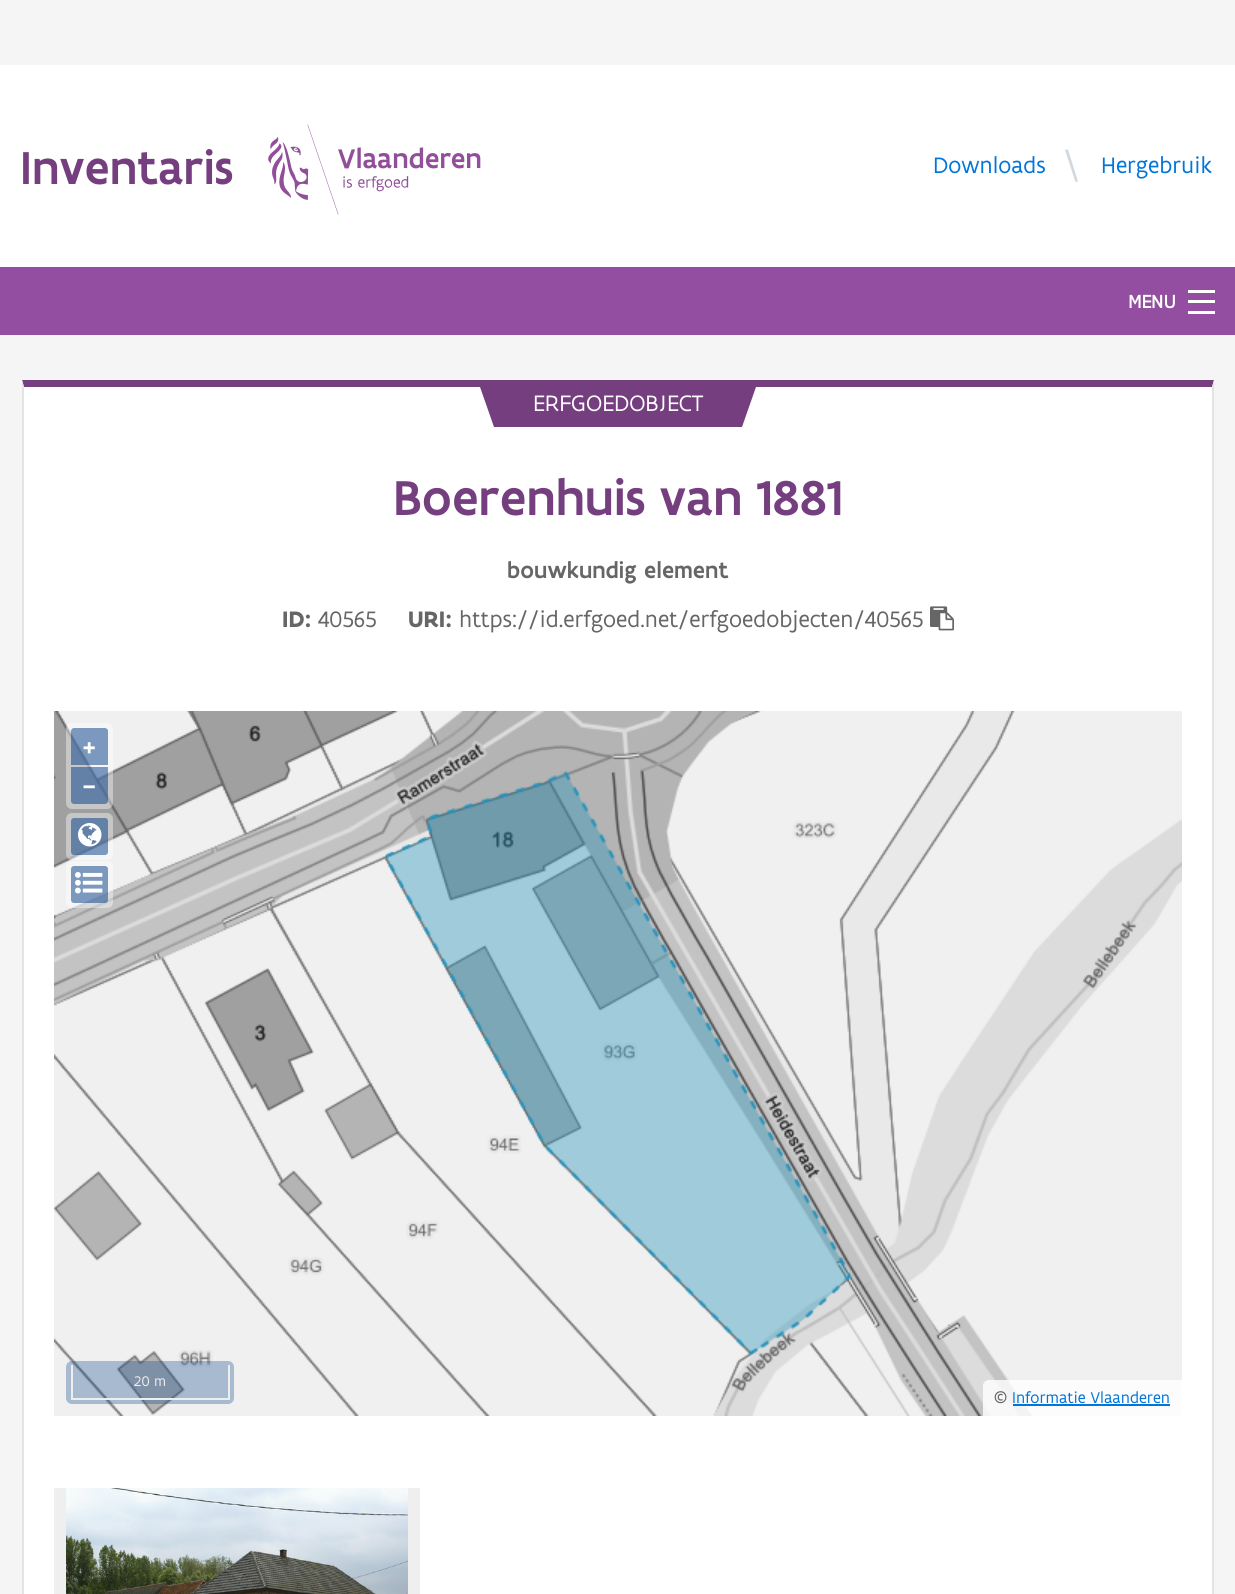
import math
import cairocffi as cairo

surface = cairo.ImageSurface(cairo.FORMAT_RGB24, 1235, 1594)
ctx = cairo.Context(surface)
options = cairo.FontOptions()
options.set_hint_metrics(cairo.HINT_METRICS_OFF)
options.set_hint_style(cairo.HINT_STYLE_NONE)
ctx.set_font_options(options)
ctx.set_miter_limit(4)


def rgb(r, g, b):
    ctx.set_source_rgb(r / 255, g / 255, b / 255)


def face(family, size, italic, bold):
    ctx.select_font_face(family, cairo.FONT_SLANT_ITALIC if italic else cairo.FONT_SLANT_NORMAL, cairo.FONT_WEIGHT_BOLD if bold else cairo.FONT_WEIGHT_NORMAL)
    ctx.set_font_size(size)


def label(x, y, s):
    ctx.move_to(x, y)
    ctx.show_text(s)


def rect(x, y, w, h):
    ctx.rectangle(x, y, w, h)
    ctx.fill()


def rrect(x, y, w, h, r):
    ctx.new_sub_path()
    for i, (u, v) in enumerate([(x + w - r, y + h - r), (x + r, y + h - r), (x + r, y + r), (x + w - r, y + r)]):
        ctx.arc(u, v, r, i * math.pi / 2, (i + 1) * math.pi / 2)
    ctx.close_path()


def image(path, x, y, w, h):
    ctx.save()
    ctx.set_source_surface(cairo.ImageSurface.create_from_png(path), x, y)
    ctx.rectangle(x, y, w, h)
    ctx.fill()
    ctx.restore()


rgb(245, 245, 245)
ctx.paint()
rgb(255, 255, 255)
rect(0, 65, 1235, 202)
face('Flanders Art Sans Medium', 49.5, 0, 0)
rgb(117, 63, 127)
label(20, 184, 'Inventaris')
image('image0.png', 268, 124, 213, 91)
face('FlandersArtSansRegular', 24, 0, 0)
rgb(0, 117, 219)
label(933, 173, 'Downloads')
rgb(209, 216, 223)
ctx.new_path()
ctx.move_to(1065, 150)
ctx.line_to(1068, 149.5)
ctx.line_to(1078, 181.5)
ctx.line_to(1075.5, 182)
ctx.close_path()
ctx.fill()
rgb(0, 117, 219)
label(1101, 173, 'Hergebruik')
rgb(148, 78, 161)
rect(0, 267, 1235, 68)
face('FlandersArtSansRegular', 19.5, 0, 1)
rgb(255, 255, 255)
label(1128, 308, 'MENU')
rect(1188, 311, 27, 3)
rect(1188, 300, 27, 3)
rect(1188, 290, 27, 3)
rect(24, 387, 1188, 1207)
rgb(117, 63, 127)
ctx.new_path()
ctx.move_to(22, 380)
ctx.line_to(1214, 380)
ctx.line_to(1212, 387)
ctx.line_to(24, 387)
ctx.close_path()
ctx.fill()
rgb(227, 227, 227)
ctx.new_path()
ctx.move_to(1214, 380)
ctx.line_to(1214, 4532)
ctx.line_to(1212, 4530)
ctx.line_to(1212, 387)
ctx.close_path()
ctx.fill()
ctx.new_path()
ctx.move_to(22, 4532)
ctx.line_to(22, 380)
ctx.line_to(24, 387)
ctx.line_to(24, 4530)
ctx.close_path()
ctx.fill()
rgb(117, 63, 127)
ctx.new_path()
ctx.move_to(480, 387)
ctx.line_to(698, 387)
ctx.line_to(713, 427)
ctx.line_to(494, 427)
ctx.close_path()
ctx.fill()
ctx.new_path()
ctx.move_to(538, 387)
ctx.line_to(756, 387)
ctx.line_to(742, 427)
ctx.line_to(523, 427)
ctx.close_path()
ctx.fill()
face('FlandersArtSansRegular', 24, 0, 0)
rgb(255, 255, 255)
label(533, 411, 'ERFGOEDOBJECT')
face('Flanders Art Sans Medium', 52.5, 0, 0)
rgb(117, 63, 127)
label(393, 515, 'Boerenhuis van 1881')
face('Flanders Art Sans Medium', 24, 0, 0)
rgb(102, 102, 102)
label(507, 578, 'bouwkundig')
label(644, 578, 'element')
face('Flanders Art Sans', 24, 0, 1)
label(282, 627, 'ID:')
face('FlandersArtSansRegular', 24, 0, 0)
label(318, 627, '40565')
face('Flanders Art Sans', 24, 0, 1)
label(408, 627, 'URI:')
face('FlandersArtSansRegular', 24, 0, 0)
label(459, 627, 'https://id.erfgoed.net/erfgoedobjecten/40565')
image('image1.png', 930, 606, 24, 25)
image('image2.png', 54, 711, 1128, 705)
ctx.set_source_rgba(1, 1, 1, 0.4)
rrect(66, 723, 47, 86, 6)
ctx.fill()
ctx.set_source_rgba(0, 0.235, 0.533, 0.5)
ctx.new_path()
ctx.move_to(74, 728)
ctx.line_to(105, 728)
ctx.curve_to(106.5, 728, 108, 729.5, 108, 731)
ctx.line_to(108, 765)
ctx.line_to(71, 765)
ctx.line_to(71, 731)
ctx.curve_to(71, 729.5, 72.5, 728, 74, 728)
ctx.close_path()
ctx.fill()
face('FlandersArtSansRegular', 27, 0, 1)
rgb(255, 255, 255)
label(82, 755, '+')
ctx.set_source_rgba(0, 0.235, 0.533, 0.5)
ctx.new_path()
ctx.move_to(71, 767)
ctx.line_to(108, 767)
ctx.line_to(108, 801)
ctx.curve_to(108, 802.5, 106.5, 804, 105, 804)
ctx.line_to(74, 804)
ctx.curve_to(72.5, 804, 71, 802.5, 71, 801)
ctx.close_path()
ctx.fill()
rgb(255, 255, 255)
label(82, 794, '−')
ctx.set_source_rgba(1, 1, 1, 0.4)
rrect(66, 813, 47, 47, 6)
ctx.fill()
ctx.set_source_rgba(0, 0.235, 0.533, 0.5)
rrect(71, 818, 37, 37, 3)
ctx.fill()
image('image3.png', 78, 823, 24, 24)
ctx.set_source_rgba(1, 1, 1, 0.4)
rrect(66, 861, 47, 47, 6)
ctx.fill()
ctx.set_source_rgba(0, 0.235, 0.533, 0.5)
rrect(71, 866, 37, 37, 3)
ctx.fill()
image('image4.png', 75, 872, 28, 22)
ctx.set_source_rgba(0, 0.235, 0.533, 0.3)
rrect(66, 1361, 168, 43, 6)
ctx.fill()
rgb(238, 238, 238)
rect(228, 1365, 2, 35)
rect(71, 1398, 159, 2)
rect(71, 1365, 2, 35)
face('FlandersArtSansRegular', 15, 0, 0)
label(134, 1386, '20 m')
ctx.set_source_rgba(1, 1, 1, 0.8)
ctx.new_path()
ctx.move_to(989, 1380)
ctx.line_to(1182, 1380)
ctx.line_to(1182, 1416)
ctx.line_to(983, 1416)
ctx.line_to(983, 1386)
ctx.curve_to(983, 1382.5, 985.5, 1380, 989, 1380)
ctx.close_path()
ctx.fill()
face('FlandersArtSansRegular', 16.75, 0, 0)
rgb(102, 102, 102)
label(994, 1403, '©')
rgb(0, 117, 219)
label(1012, 1403, 'Informatie Vlaanderen')
rect(1013, 1404, 157, 2)
rgb(239, 239, 239)
rect(54, 1488, 366, 106)
image('image5.png', 66, 1488, 342, 106)
surface.write_to_png('render.png')
